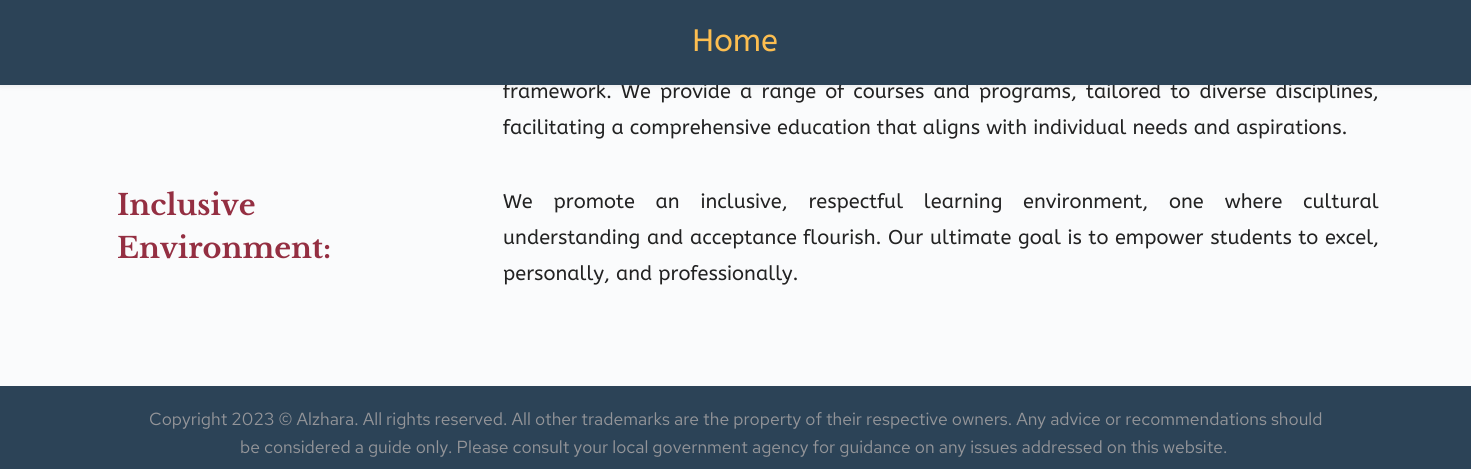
import math
import cairocffi as cairo

surface = cairo.ImageSurface(cairo.FORMAT_RGB24, 1471, 469)
ctx = cairo.Context(surface)
options = cairo.FontOptions()
options.set_hint_metrics(cairo.HINT_METRICS_OFF)
options.set_hint_style(cairo.HINT_STYLE_NONE)
ctx.set_font_options(options)
ctx.set_miter_limit(4)


def rgb(r, g, b):
    ctx.set_source_rgb(r / 255, g / 255, b / 255)


def face(family, size, italic, bold):
    ctx.select_font_face(family, cairo.FONT_SLANT_ITALIC if italic else cairo.FONT_SLANT_NORMAL, cairo.FONT_WEIGHT_BOLD if bold else cairo.FONT_WEIGHT_NORMAL)
    ctx.set_font_size(size)


def label(x, y, s):
    ctx.move_to(x, y)
    ctx.show_text(s)


def tracked(x, y, s, letter, word):
    ctx.move_to(x, y)
    for ch in s:
        ctx.show_text(ch)
        ctx.rel_move_to(letter + word * (ch == ' '), 0)


def rect(x, y, w, h):
    ctx.rectangle(x, y, w, h)
    ctx.fill()


def rrect(x, y, w, h, r):
    ctx.new_sub_path()
    for i, (u, v) in enumerate([(x + w - r, y + h - r), (x + r, y + h - r), (x + r, y + r), (x + w - r, y + r)]):
        ctx.arc(u, v, r, i * math.pi / 2, (i + 1) * math.pi / 2)
    ctx.close_path()


def soft_shadow(x, y, w, h, r, blur, alpha):
    ctx.push_group_with_content(cairo.CONTENT_ALPHA)
    ctx.set_operator(cairo.OPERATOR_SOURCE)
    for i in range(15, -16, -2):
        e = blur * i / 6
        if min(w, h) + 2 * e > 0:
            ctx.set_source_rgba(0, 0, 0, alpha * math.erfc((i - 1) / 8.5) / 2)
            rrect(x - e, y - e, w + 2 * e, h + 2 * e, max(0, min(r + e + blur * .6, min(w, h) / 2 + e)))
            ctx.fill()
    ctx.mask(ctx.pop_group())


rgb(250, 251, 252)
ctx.paint()
rgb(0, 0, 0)
soft_shadow(0, 0, 1471, 85, 0, 3, 0.1)
face('ABeeZee', 20, 0, 0)
rgb(34, 34, 34)
tracked(503, 98, 'framework. We provide a range of courses and programs, tailored to diverse disciplines,', 0, 3.1)
rgb(44, 67, 87)
rect(0, 0, 1471, 85)
face('ABeeZee', 31, 0, 0)
rgb(253, 190, 80)
label(692, 51, 'Home')
face('ABeeZee', 20, 0, 0)
rgb(34, 34, 34)
label(503, 134, 'facilitating a comprehensive education that aligns with individual needs and aspirations.')
face('Libre Baskerville', 28.75, 0, 1)
rgb(148, 47, 66)
label(117, 215, 'Inclusive')
label(117, 258, 'Environment:')
face('ABeeZee', 20, 0, 0)
rgb(34, 34, 34)
tracked(503, 208, 'We promote an inclusive, respectful learning environment, one where cultural', 0, 14.75)
tracked(503, 244, 'understanding and acceptance flourish. Our ultimate goal is to empower students to excel,', 0, 0.6)
label(503, 280, 'personally, and professionally.')
rgb(44, 67, 87)
rect(0, 386, 1471, 83)
face('Red Hat Text', 17.5, 0, 0)
rgb(148, 149, 153)
label(149, 425, 'Copyright 2023 © Alzhara. All rights reserved. All other trademarks are the property of their respective owners. Any advice or recommendations should')
label(240, 453, 'be considered a guide only. Please consult your local government agency for guidance on any issues addressed on this website.')
surface.write_to_png('render.png')
